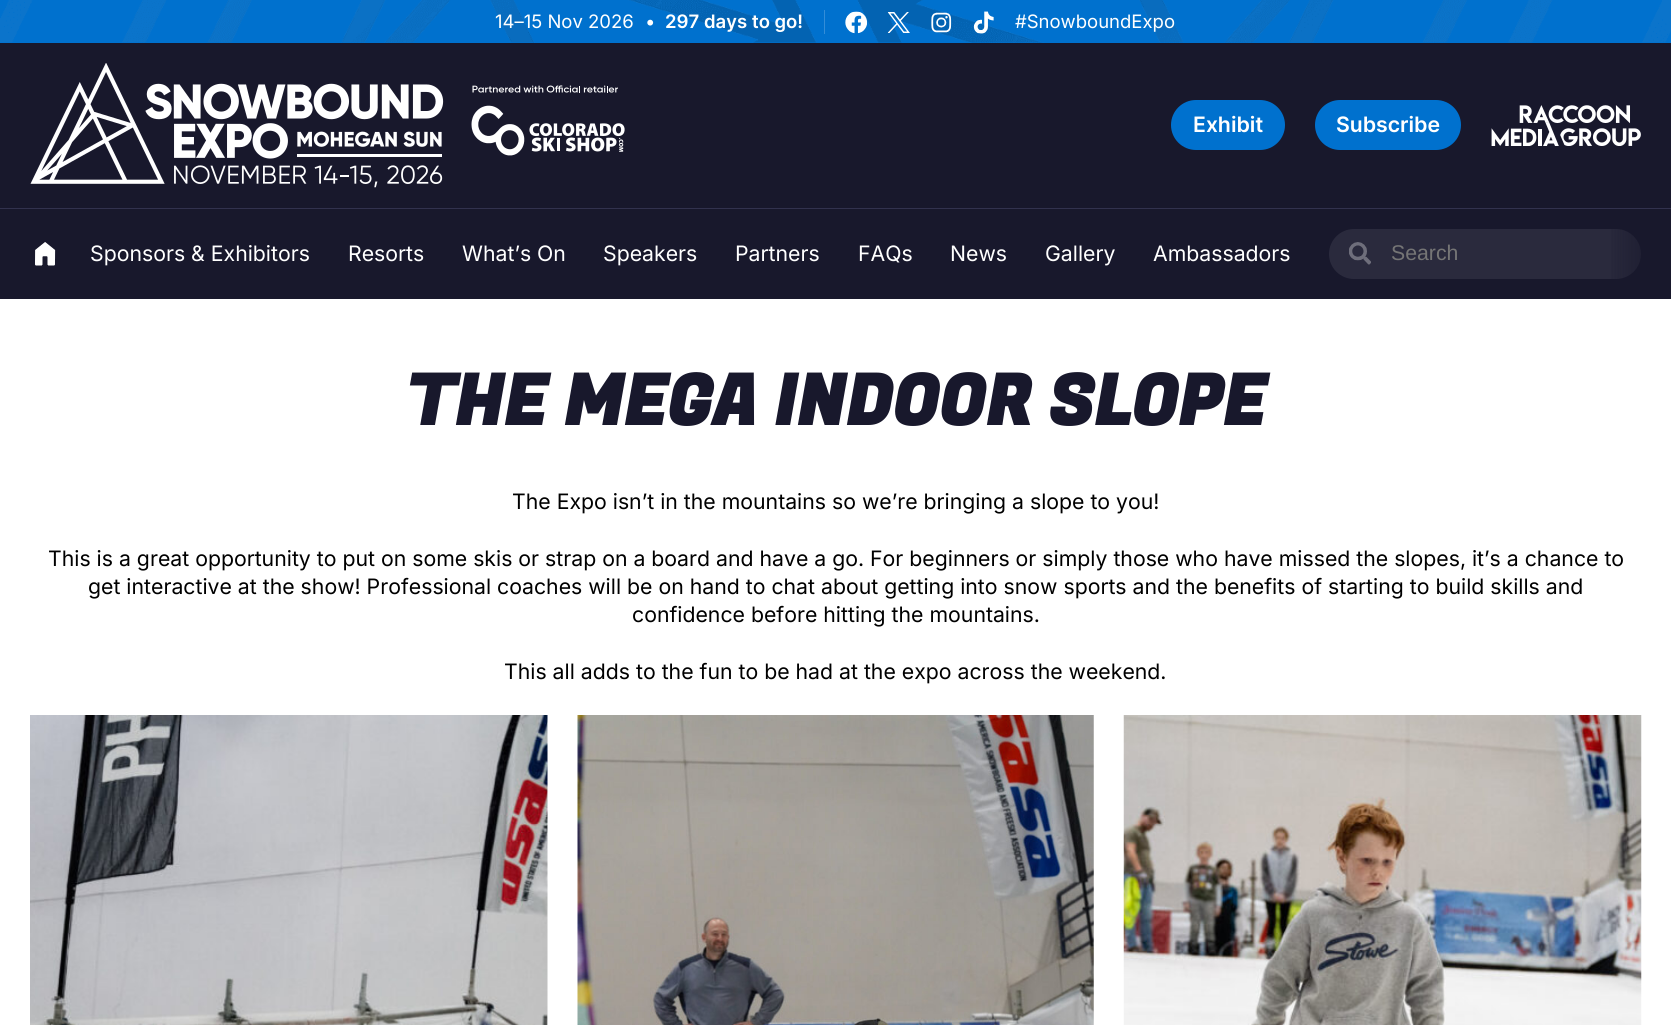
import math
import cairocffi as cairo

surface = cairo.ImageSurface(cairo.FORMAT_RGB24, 1671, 1025)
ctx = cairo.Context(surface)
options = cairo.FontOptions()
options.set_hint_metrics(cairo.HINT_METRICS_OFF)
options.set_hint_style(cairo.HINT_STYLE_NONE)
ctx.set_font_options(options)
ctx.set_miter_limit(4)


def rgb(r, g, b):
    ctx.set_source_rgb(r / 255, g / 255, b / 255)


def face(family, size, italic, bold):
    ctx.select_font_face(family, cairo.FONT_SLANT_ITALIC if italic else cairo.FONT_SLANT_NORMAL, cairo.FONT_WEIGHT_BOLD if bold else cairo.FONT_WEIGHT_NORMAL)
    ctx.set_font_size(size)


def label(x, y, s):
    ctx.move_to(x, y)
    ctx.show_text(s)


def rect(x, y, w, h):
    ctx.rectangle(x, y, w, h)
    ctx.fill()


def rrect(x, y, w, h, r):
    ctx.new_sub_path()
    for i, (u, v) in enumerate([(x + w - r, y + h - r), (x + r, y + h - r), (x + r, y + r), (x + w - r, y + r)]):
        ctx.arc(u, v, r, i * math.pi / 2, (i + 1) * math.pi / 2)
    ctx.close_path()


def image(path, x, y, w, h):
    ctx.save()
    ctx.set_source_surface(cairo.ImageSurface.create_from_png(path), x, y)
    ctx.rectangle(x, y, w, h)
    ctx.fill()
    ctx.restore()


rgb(255, 255, 255)
ctx.paint()
rgb(0, 113, 206)
rect(0, 0, 1671, 43)
image('image0.png', 0, 0, 1671, 43)
face('Inter', 18.5, 0, 0)
rgb(255, 255, 255)
label(495, 28, '14–15 Nov 2026')
label(645, 28, '•')
rgb(51, 141, 216)
rect(824, 10, 1, 24)
face('Inter SemiBold', 18.5, 0, 0)
rgb(255, 255, 255)
label(665, 28, '297 days to go!')
image('image1.png', 845, 11, 23, 23)
image('image2.png', 887, 12, 23, 21)
image('image3.png', 931, 12, 21, 21)
image('image4.png', 973, 11, 21, 23)
face('Inter', 18.5, 0, 0)
label(1015, 28, '#SnowboundExpo')
rgb(24, 24, 44)
rect(0, 43, 1671, 165)
image('image5.png', 30, 63, 595, 125)
rgb(0, 113, 206)
rrect(1171, 100, 114, 50, 25)
ctx.fill()
face('Inter SemiBold', 21.25, 0, 0)
rgb(255, 255, 255)
label(1193, 132, 'Exhibit')
rgb(0, 113, 206)
rrect(1315, 100, 146, 50, 25)
ctx.fill()
rgb(255, 255, 255)
label(1336, 132, 'Subscribe')
image('image6.png', 1491, 105, 150, 41)
rgb(24, 24, 44)
rect(0, 209, 1671, 90)
rgb(50, 50, 78)
rect(0, 208, 1671, 1)
image('image7.png', 35, 242, 21, 24)
face('Inter', 21.25, 0, 0)
rgb(255, 255, 255)
label(90, 261, 'Sponsors & Exhibitors')
label(348, 261, 'Resorts')
label(462, 261, 'What’s On')
label(603, 261, 'Speakers')
label(735, 261, 'Partners')
label(858, 261, 'FAQs')
label(950, 261, 'News')
label(1045, 261, 'Gallery')
label(1153, 261, 'Ambassadors')
rgb(42, 42, 61)
rrect(1329, 229, 312, 50, 25)
ctx.fill()
image('image8.png', 1349, 242, 22, 23)
face('Liberation Sans', 21.25, 0, 0)
rgb(117, 117, 117)
label(1391, 260, 'Search')
gradient = cairo.LinearGradient(1603, 254, 1671, 254)
gradient.add_color_stop_rgba(0, 0.094, 0.094, 0.173, 0)
gradient.add_color_stop_rgba(1, 0.094, 0.094, 0.173, 1)
ctx.set_source(gradient)
rect(1611, 229, 30, 50)
face('Fugaz One', 70.1, 0, 1)
rgb(24, 24, 44)
label(406, 425, 'THE MEGA INDOOR SLOPE')
face('Inter', 21.25, 0, 0)
rgb(0, 0, 0)
label(512, 509, 'The Expo isn’t in the mountains so we’re bringing a slope to you!')
label(48, 566, 'This is a great opportunity to put on some skis or strap on a board and have a go. For beginners or simply those who have missed the slopes, it’s a chance to')
label(88, 594, 'get interactive at the show! Professional coaches will be on hand to chat about getting into snow sports and the benefits of starting to build skills and')
label(632, 622, 'confidence before hitting the mountains.')
label(504, 679, 'This all adds to the fun to be had at the expo across the weekend.')
image('image9.png', 30, 715, 518, 310)
image('image10.png', 577, 715, 517, 310)
image('image11.png', 1123, 715, 519, 310)
surface.write_to_png('render.png')
